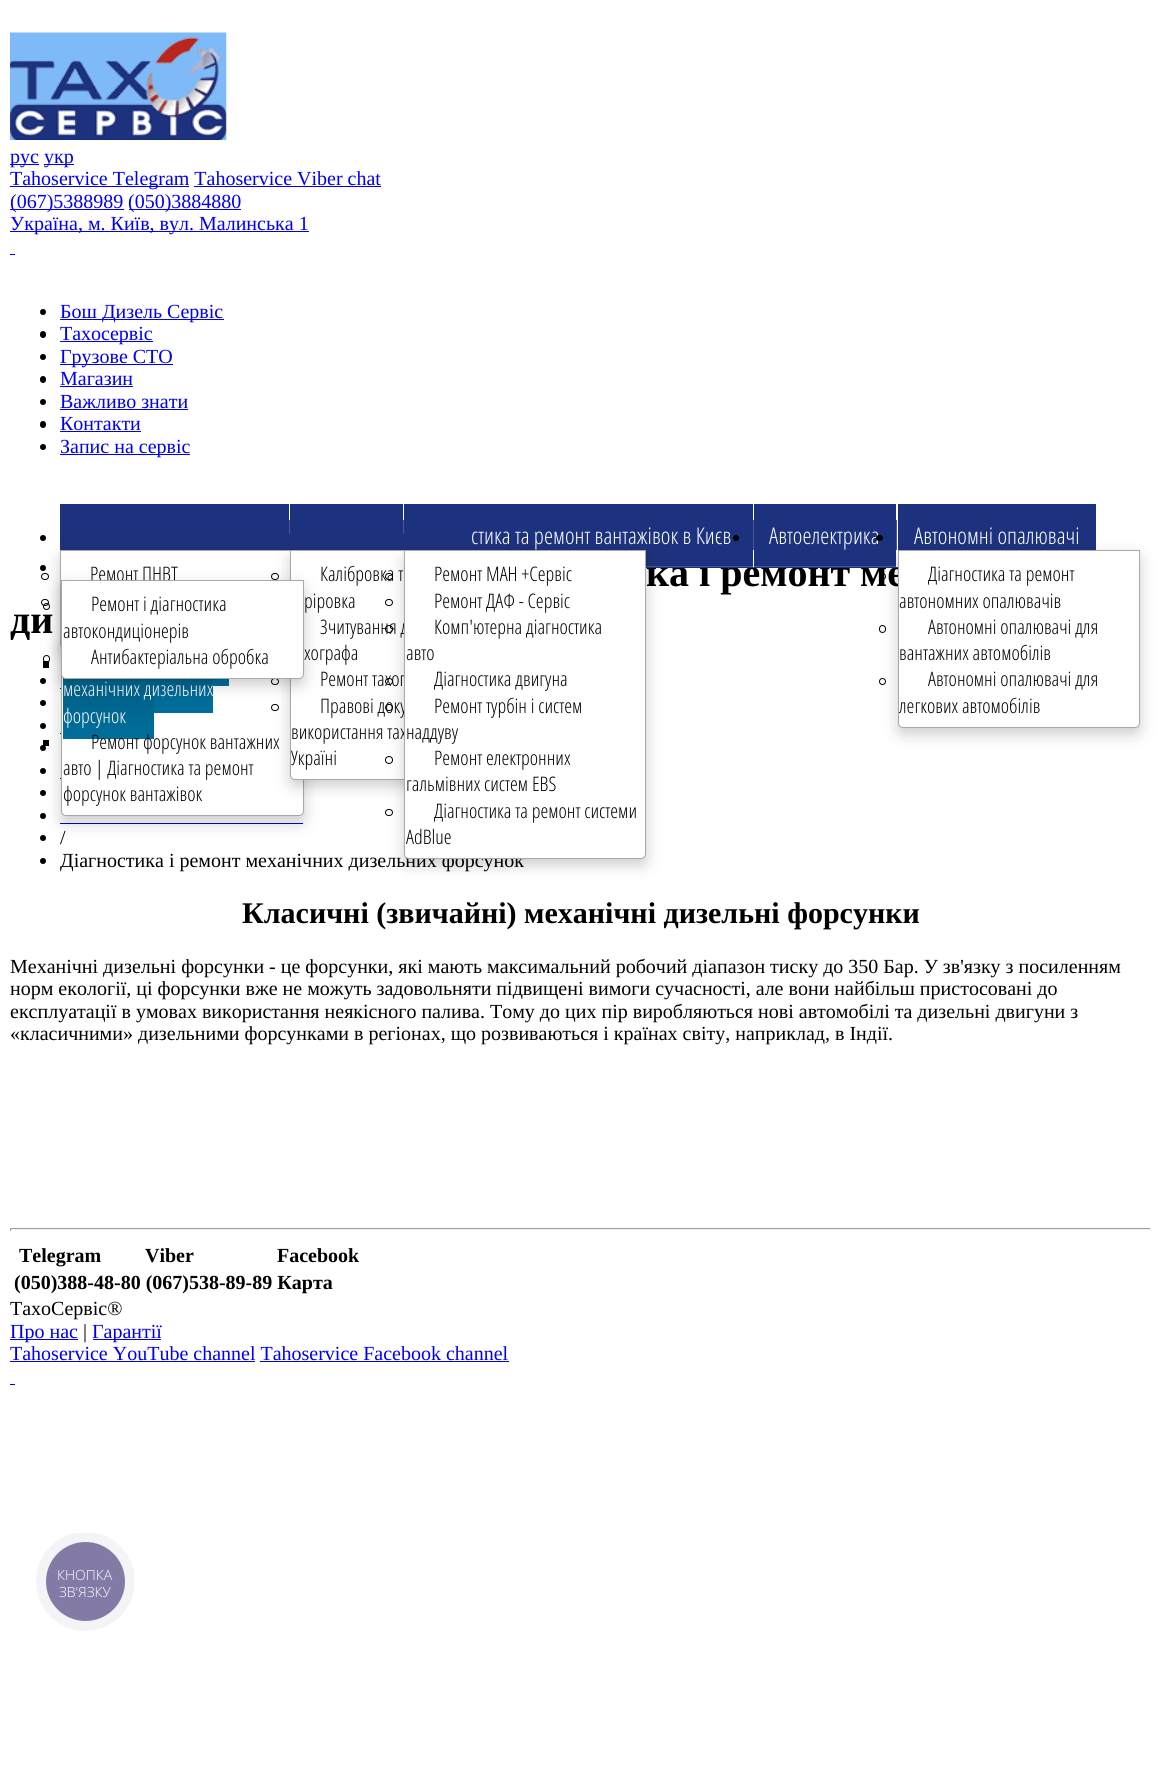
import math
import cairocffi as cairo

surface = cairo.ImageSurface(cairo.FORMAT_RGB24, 1161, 1765)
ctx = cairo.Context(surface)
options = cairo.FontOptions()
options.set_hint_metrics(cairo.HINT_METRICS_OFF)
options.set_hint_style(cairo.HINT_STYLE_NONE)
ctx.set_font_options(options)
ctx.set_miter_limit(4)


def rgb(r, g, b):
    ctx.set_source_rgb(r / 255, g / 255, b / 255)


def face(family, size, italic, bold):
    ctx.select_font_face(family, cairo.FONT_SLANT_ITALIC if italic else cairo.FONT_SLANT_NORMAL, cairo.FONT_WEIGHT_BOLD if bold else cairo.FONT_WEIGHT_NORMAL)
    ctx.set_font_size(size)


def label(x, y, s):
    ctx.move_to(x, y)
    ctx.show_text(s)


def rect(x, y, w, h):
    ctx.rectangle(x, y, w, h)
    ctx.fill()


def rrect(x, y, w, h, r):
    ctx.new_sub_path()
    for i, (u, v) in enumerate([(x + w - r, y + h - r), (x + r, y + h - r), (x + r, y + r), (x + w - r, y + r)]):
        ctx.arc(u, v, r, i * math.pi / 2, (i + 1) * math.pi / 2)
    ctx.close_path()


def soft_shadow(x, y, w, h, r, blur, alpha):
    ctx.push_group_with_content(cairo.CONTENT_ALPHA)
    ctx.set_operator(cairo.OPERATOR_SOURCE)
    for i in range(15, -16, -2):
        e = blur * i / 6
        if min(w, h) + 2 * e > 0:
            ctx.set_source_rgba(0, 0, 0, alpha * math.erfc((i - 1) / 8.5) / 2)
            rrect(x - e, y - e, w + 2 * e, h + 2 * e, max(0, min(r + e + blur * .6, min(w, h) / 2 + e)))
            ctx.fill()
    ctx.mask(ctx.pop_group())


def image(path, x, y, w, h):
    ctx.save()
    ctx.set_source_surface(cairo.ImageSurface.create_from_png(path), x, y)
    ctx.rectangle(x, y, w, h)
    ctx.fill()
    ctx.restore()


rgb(255, 255, 255)
ctx.paint()
image('image0.png', 10, 32, 217, 108)
rgb(0, 0, 238)
rect(10, 164, 29, 1)
face('Liberation Serif', 20, 0, 0)
label(10, 163, 'рус')
rect(44, 164, 30, 1)
label(44, 163, 'укр')
rect(10, 186, 179, 1)
label(10, 185, 'Tahoservice Telegram Tahoservice Viber chat')
rect(194, 186, 187, 1)
rect(10, 209, 114, 1)
label(10, 208, '(067)5388989')
rect(129, 209, 112, 1)
label(128, 208, '(050)3884880')
rect(10, 231, 299, 1)
label(10, 230, 'Україна, м. Київ, вул. Малинська 1')
rect(10, 254, 5, 1)
rgb(0, 0, 0)
ctx.new_path()
ctx.arc(43, 312, 3, 0, 2 * math.pi)
ctx.fill()
rgb(0, 0, 238)
rect(60, 319, 164, 1)
label(60, 318, 'Бош Дизель Сервіс')
rgb(0, 0, 0)
rrect(40, 331, 6, 7, 3)
ctx.fill()
rgb(0, 0, 238)
rect(60, 341, 93, 1)
label(60, 340, 'Тахосервіс')
rgb(0, 0, 0)
ctx.new_path()
ctx.arc(43, 357, 3, 0, 2 * math.pi)
ctx.fill()
rgb(0, 0, 238)
rect(60, 364, 113, 1)
label(60, 363, 'Грузове СТО')
rgb(0, 0, 0)
rrect(40, 376, 6, 7, 3)
ctx.fill()
rgb(0, 0, 238)
label(60, 385, 'Магазин')
rect(60, 386, 73, 1)
rgb(0, 0, 0)
ctx.new_path()
ctx.arc(43, 402, 3, 0, 2 * math.pi)
ctx.fill()
rgb(0, 0, 238)
label(60, 408, 'Важливо знати')
rect(60, 409, 128, 1)
rgb(0, 0, 0)
rrect(40, 421, 6, 7, 3)
ctx.fill()
rgb(0, 0, 238)
label(60, 430, 'Контакти')
rect(60, 431, 81, 1)
rgb(0, 0, 0)
ctx.new_path()
ctx.arc(43, 447, 3, 0, 2 * math.pi)
ctx.fill()
rgb(0, 0, 238)
rect(60, 454, 130, 1)
label(60, 453, 'Запис на сервіс')
rgb(29, 50, 126)
rect(289, 534, 115, 16)
rgb(70, 87, 147)
rect(403, 520, 1, 14)
face('Liberation Serif', 40, 0, 1)
rgb(0, 0, 0)
label(646, 586, 'ка і ремонт ме')
rgb(29, 50, 126)
rect(404, 504, 349, 64)
face('Open Sans Light', 23.1, 0, 0)
rgb(255, 255, 255)
label(471, 544, 'стика та ремонт вантажівок в Києв')
rgb(70, 87, 147)
rect(646, 566, 107, 1)
rgb(29, 50, 126)
rect(290, 504, 113, 30)
rgb(0, 0, 0)
ctx.new_path()
ctx.arc(43, 538, 3, 0, 2 * math.pi)
ctx.fill()
rgb(29, 50, 126)
rect(60, 504, 229, 46)
rgb(70, 87, 147)
rect(289, 520, 1, 14)
rgb(0, 0, 0)
ctx.arc(43, 568, 3, 0, 2 * math.pi)
ctx.fill()
ctx.arc(43, 681, 3, 0, 2 * math.pi)
ctx.fill()
rgb(0, 0, 0)
soft_shadow(60, 556, 243, 99, 5, 7.5, 0.2)
rgb(255, 255, 255)
ctx.new_path()
ctx.move_to(60.5, 550.5)
ctx.line_to(302.5, 550.5)
ctx.line_to(302.5, 644)
ctx.curve_to(302.5, 646.5, 300.5, 648.5, 298, 648.5)
ctx.line_to(65, 648.5)
ctx.curve_to(62.5, 648.5, 60.5, 646.5, 60.5, 644)
ctx.close_path()
ctx.fill_preserve()
rgb(168, 168, 168)
ctx.set_line_width(1)
ctx.stroke()
rgb(0, 0, 238)
rect(60, 688, 1, 1)
rgb(0, 0, 0)
ctx.arc(43, 703, 3, 0, 2 * math.pi)
ctx.fill()
ctx.arc(43, 726, 3, 0, 2 * math.pi)
ctx.fill()
rgb(0, 0, 238)
rect(60, 733, 1, 1)
rgb(0, 0, 0)
ctx.arc(43, 748, 3, 0, 2 * math.pi)
ctx.fill()
ctx.arc(43, 771, 3, 0, 2 * math.pi)
ctx.fill()
rgb(0, 0, 238)
rect(60, 778, 1, 1)
rgb(0, 0, 0)
ctx.arc(43, 793, 3, 0, 2 * math.pi)
ctx.fill()
ctx.arc(43, 816, 3, 0, 2 * math.pi)
ctx.fill()
rgb(0, 0, 238)
rect(60, 823, 243, 1)
rgb(0, 0, 0)
ctx.arc(43, 838, 3, 0, 2 * math.pi)
ctx.fill()
rgb(0, 0, 0)
soft_shadow(61, 645, 243, 178, 5, 7.5, 0.2)
rgb(255, 255, 255)
rrect(61.5, 639.5, 242, 176, 4.5)
ctx.fill_preserve()
rgb(168, 168, 168)
ctx.stroke()
rgb(0, 0, 0)
soft_shadow(290, 556, 243, 230, 5, 7.5, 0.2)
rgb(255, 255, 255)
ctx.new_path()
ctx.move_to(290.5, 550.5)
ctx.line_to(532.5, 550.5)
ctx.line_to(532.5, 775)
ctx.curve_to(532.5, 777.5, 530.5, 779.5, 528, 779.5)
ctx.line_to(295, 779.5)
ctx.curve_to(292.5, 779.5, 290.5, 777.5, 290.5, 775)
ctx.close_path()
ctx.fill_preserve()
rgb(168, 168, 168)
ctx.stroke()
rgb(0, 0, 0)
soft_shadow(404, 556, 242, 309, 5, 7.5, 0.2)
face('Open Sans Light', 20, 0, 0)
rgb(0, 0, 0)
label(320, 634, 'Зчитування д')
label(320, 686, 'Ремонт тахог')
label(320, 713, 'Правові доку')
label(291, 739, 'використання тах')
face('Liberation Serif', 20, 0, 0)
label(60, 867, 'Діагностика і ремонт механічних дизельних форсунок')
rgb(255, 255, 255)
ctx.new_path()
ctx.move_to(404.5, 550.5)
ctx.line_to(645.5, 550.5)
ctx.line_to(645.5, 854)
ctx.curve_to(645.5, 856.5, 643.5, 858.5, 641, 858.5)
ctx.line_to(409, 858.5)
ctx.curve_to(406.5, 858.5, 404.5, 856.5, 404.5, 854)
ctx.close_path()
ctx.fill_preserve()
rgb(168, 168, 168)
ctx.stroke()
rrect(385.5, 573.5, 7, 6, 3)
rgb(0, 0, 0)
ctx.stroke()
face('Open Sans Light', 20, 0, 0)
label(434, 581, 'Ремонт МАН +Сервіс')
rrect(385.5, 599.5, 7, 6, 3)
ctx.stroke()
label(434, 608, 'Ремонт ДАФ - Сервіс')
ctx.new_path()
ctx.arc(389, 629, 3.5, 0, 2 * math.pi)
ctx.stroke()
label(434, 634, 'Комп\'ютерна діагностика')
label(406, 660, 'авто')
rrect(385.5, 678.5, 7, 6, 3)
ctx.stroke()
label(434, 686, 'Діагностика двигуна')
rrect(385.5, 704.5, 7, 6, 3)
ctx.stroke()
label(434, 713, 'Ремонт турбін і систем')
label(406, 739, 'наддуву')
ctx.new_path()
ctx.arc(389, 760, 3.5, 0, 2 * math.pi)
ctx.stroke()
label(434, 765, 'Ремонт електронних')
label(406, 791, 'гальмівних систем EBS')
rrect(385.5, 809.5, 7, 6, 3)
ctx.stroke()
label(434, 818, 'Діагностика та ремонт системи')
label(406, 844, 'AdBlue')
rgb(70, 87, 147)
rect(753, 520, 1, 30)
rgb(0, 0, 0)
ctx.new_path()
ctx.arc(736, 538, 3, 0, 2 * math.pi)
ctx.fill()
rgb(29, 50, 126)
rect(754, 504, 142, 64)
face('Open Sans Light', 23.1, 0, 0)
rgb(255, 255, 255)
label(769, 544, 'Автоелектрика')
rgb(70, 87, 147)
rect(754, 566, 142, 1)
rect(896, 520, 1, 30)
rgb(0, 0, 0)
rrect(876, 535, 7, 6, 3)
ctx.fill()
rgb(29, 50, 126)
rect(898, 504, 198, 46)
rgb(255, 255, 255)
label(914, 544, 'Автономні опалювачі')
rgb(0, 0, 0)
soft_shadow(898, 556, 242, 178, 5, 7.5, 0.2)
rgb(255, 255, 255)
ctx.new_path()
ctx.move_to(898.5, 550.5)
ctx.line_to(1139.5, 550.5)
ctx.line_to(1139.5, 723)
ctx.curve_to(1139.5, 725.5, 1137.5, 727.5, 1135, 727.5)
ctx.line_to(903, 727.5)
ctx.curve_to(900.5, 727.5, 898.5, 725.5, 898.5, 723)
ctx.close_path()
ctx.fill_preserve()
rgb(168, 168, 168)
ctx.stroke()
ctx.arc(882.5, 576.5, 3, 0, 2 * math.pi)
rgb(0, 0, 0)
ctx.stroke()
face('Open Sans Light', 20, 0, 0)
label(928, 581, 'Діагностика та ремонт')
label(899, 608, 'автономних опалювачів')
rrect(879.5, 625.5, 6, 7, 3)
ctx.stroke()
label(928, 634, 'Автономні опалювачі для')
label(899, 660, 'вантажних автомобілів')
ctx.new_path()
ctx.arc(882.5, 681.5, 3, 0, 2 * math.pi)
ctx.stroke()
label(928, 686, 'Автономні опалювачі для')
label(899, 713, 'легкових автомобілів')
rrect(41.5, 573.5, 7, 6, 3)
ctx.stroke()
label(90, 581, 'Ремонт ПНВТ')
rrect(41.5, 599.5, 7, 6, 3)
ctx.stroke()
rect(43, 661, 6, 7)
gradient = cairo.LinearGradient(138, 664, 138, 713)
gradient.add_color_stop_rgba(0, 0, 0.38, 0.533, 1)
gradient.add_color_stop_rgba(1, 0, 0.435, 0.612, 1)
ctx.set_source(gradient)
rect(63, 678, 150, 35)
gradient = cairo.LinearGradient(108, 690, 108, 739)
gradient.add_color_stop_rgba(0, 0, 0.38, 0.533, 1)
gradient.add_color_stop_rgba(1, 0, 0.435, 0.612, 1)
ctx.set_source(gradient)
rect(63, 690, 91, 49)
rgb(255, 255, 255)
label(63, 696, 'механічних дизельних')
gradient = cairo.LinearGradient(146, 638, 146, 686)
gradient.add_color_stop_rgba(0, 0, 0.38, 0.533, 1)
gradient.add_color_stop_rgba(1, 0, 0.435, 0.612, 1)
ctx.set_source(gradient)
rect(213, 679, 16, 7)
rgb(255, 255, 255)
label(63, 723, 'форсунок')
rgb(0, 0, 0)
rect(43, 740, 6, 6)
label(91, 749, 'Ремонт форсунок вантажних')
label(63, 775, 'авто | Діагностика та ремонт')
label(63, 801, 'форсунок вантажівок')
rrect(271.5, 573.5, 7, 6, 3)
ctx.stroke()
label(320, 581, 'Калібровка т')
label(304, 608, 'ріровка')
label(304, 660, 'хографа')
rrect(271.5, 678.5, 7, 6, 3)
ctx.stroke()
rrect(271.5, 704.5, 7, 6, 3)
ctx.stroke()
label(291, 765, 'Україні')
rgb(0, 0, 0)
soft_shadow(61, 586, 243, 99, 5, 7.5, 0.2)
rgb(255, 255, 255)
ctx.new_path()
ctx.move_to(61.5, 580.5)
ctx.line_to(303.5, 580.5)
ctx.line_to(303.5, 674)
ctx.curve_to(303.5, 676.5, 301.5, 678.5, 299, 678.5)
ctx.line_to(66, 678.5)
ctx.curve_to(63.5, 678.5, 61.5, 676.5, 61.5, 674)
ctx.close_path()
ctx.fill_preserve()
rgb(168, 168, 168)
ctx.stroke()
ctx.arc(46.5, 606.5, 3, 0, 2 * math.pi)
rgb(0, 0, 0)
ctx.stroke()
label(91, 611, 'Ремонт і діагностика')
label(63, 638, 'автокондиціонерів')
rrect(43.5, 655.5, 6, 7, 3)
ctx.stroke()
label(91, 664, 'Антибактеріальна обробка')
face('Liberation Serif', 40, 0, 1)
label(10, 633, 'ди')
face('Liberation Serif', 20, 0, 0)
label(60, 844, '/')
ctx.new_path()
ctx.arc(43, 861, 3, 0, 2 * math.pi)
ctx.fill()
face('Liberation Serif', 30, 0, 1)
label(242, 923, 'Класичні (звичайні) механічні дизельні форсунки')
face('Liberation Serif', 20, 0, 0)
label(10, 973, 'Механічні дизельні форсунки - це форсунки, які мають максимальний робочий діапазон тиску до 350 Бар. У зв\'язку з посиленням')
label(10, 995, 'норм екології, ці форсунки вже не можуть задовольняти підвищені вимоги сучасності, але вони найбільш пристосовані до')
label(10, 1018, 'експлуатації в умовах використання неякісного палива. Тому до цих пір виробляються нові автомобілі та дизельні двигуни з')
label(10, 1040, '«класичними» дизельними форсунками в регіонах, що розвиваються і країнах світу, наприклад, в Індії.')
rgb(159, 159, 159)
rect(10, 1228, 1141, 1)
rgb(238, 238, 238)
rect(1150, 1228, 1, 3)
rect(10, 1229, 1141, 1)
rgb(159, 159, 159)
rect(10, 1228, 1, 3)
face('Liberation Serif', 20, 0, 1)
rgb(0, 0, 0)
label(19, 1262, 'Telegram')
label(145, 1262, 'Viber')
label(277, 1262, 'Facebook')
label(14, 1289, '(050)388-48-80 (067)538-89-89 Карта')
face('Liberation Serif', 20, 0, 0)
label(10, 1315, 'ТахоСервіс®')
rgb(0, 0, 238)
rect(10, 1339, 68, 1)
label(10, 1338, 'Про нас')
rgb(0, 0, 0)
label(83, 1338, '|')
rgb(0, 0, 238)
rect(93, 1339, 68, 1)
label(92, 1338, 'Гарантії')
label(10, 1360, 'Tahoservice YouTube channel Tahoservice Facebook channel')
rect(10, 1361, 245, 1)
rect(260, 1361, 249, 1)
rect(10, 1384, 5, 1)
ctx.save()
ctx.rectangle(35, 1533, 99, 98)
ctx.clip()
rgb(242, 244, 245)
ctx.arc(85.5, 1581.5, 49.5, 0, 2 * math.pi)
ctx.fill()
ctx.restore()
rgb(131, 123, 166)
ctx.arc(85.5, 1581.5, 39.5, 0, 2 * math.pi)
ctx.fill()
face('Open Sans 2 Light', 14, 0, 0)
rgb(255, 255, 255)
label(57, 1580, 'КНОПКА')
label(59, 1597, 'ЗВ\'ЯЗКУ')
surface.write_to_png('render.png')
